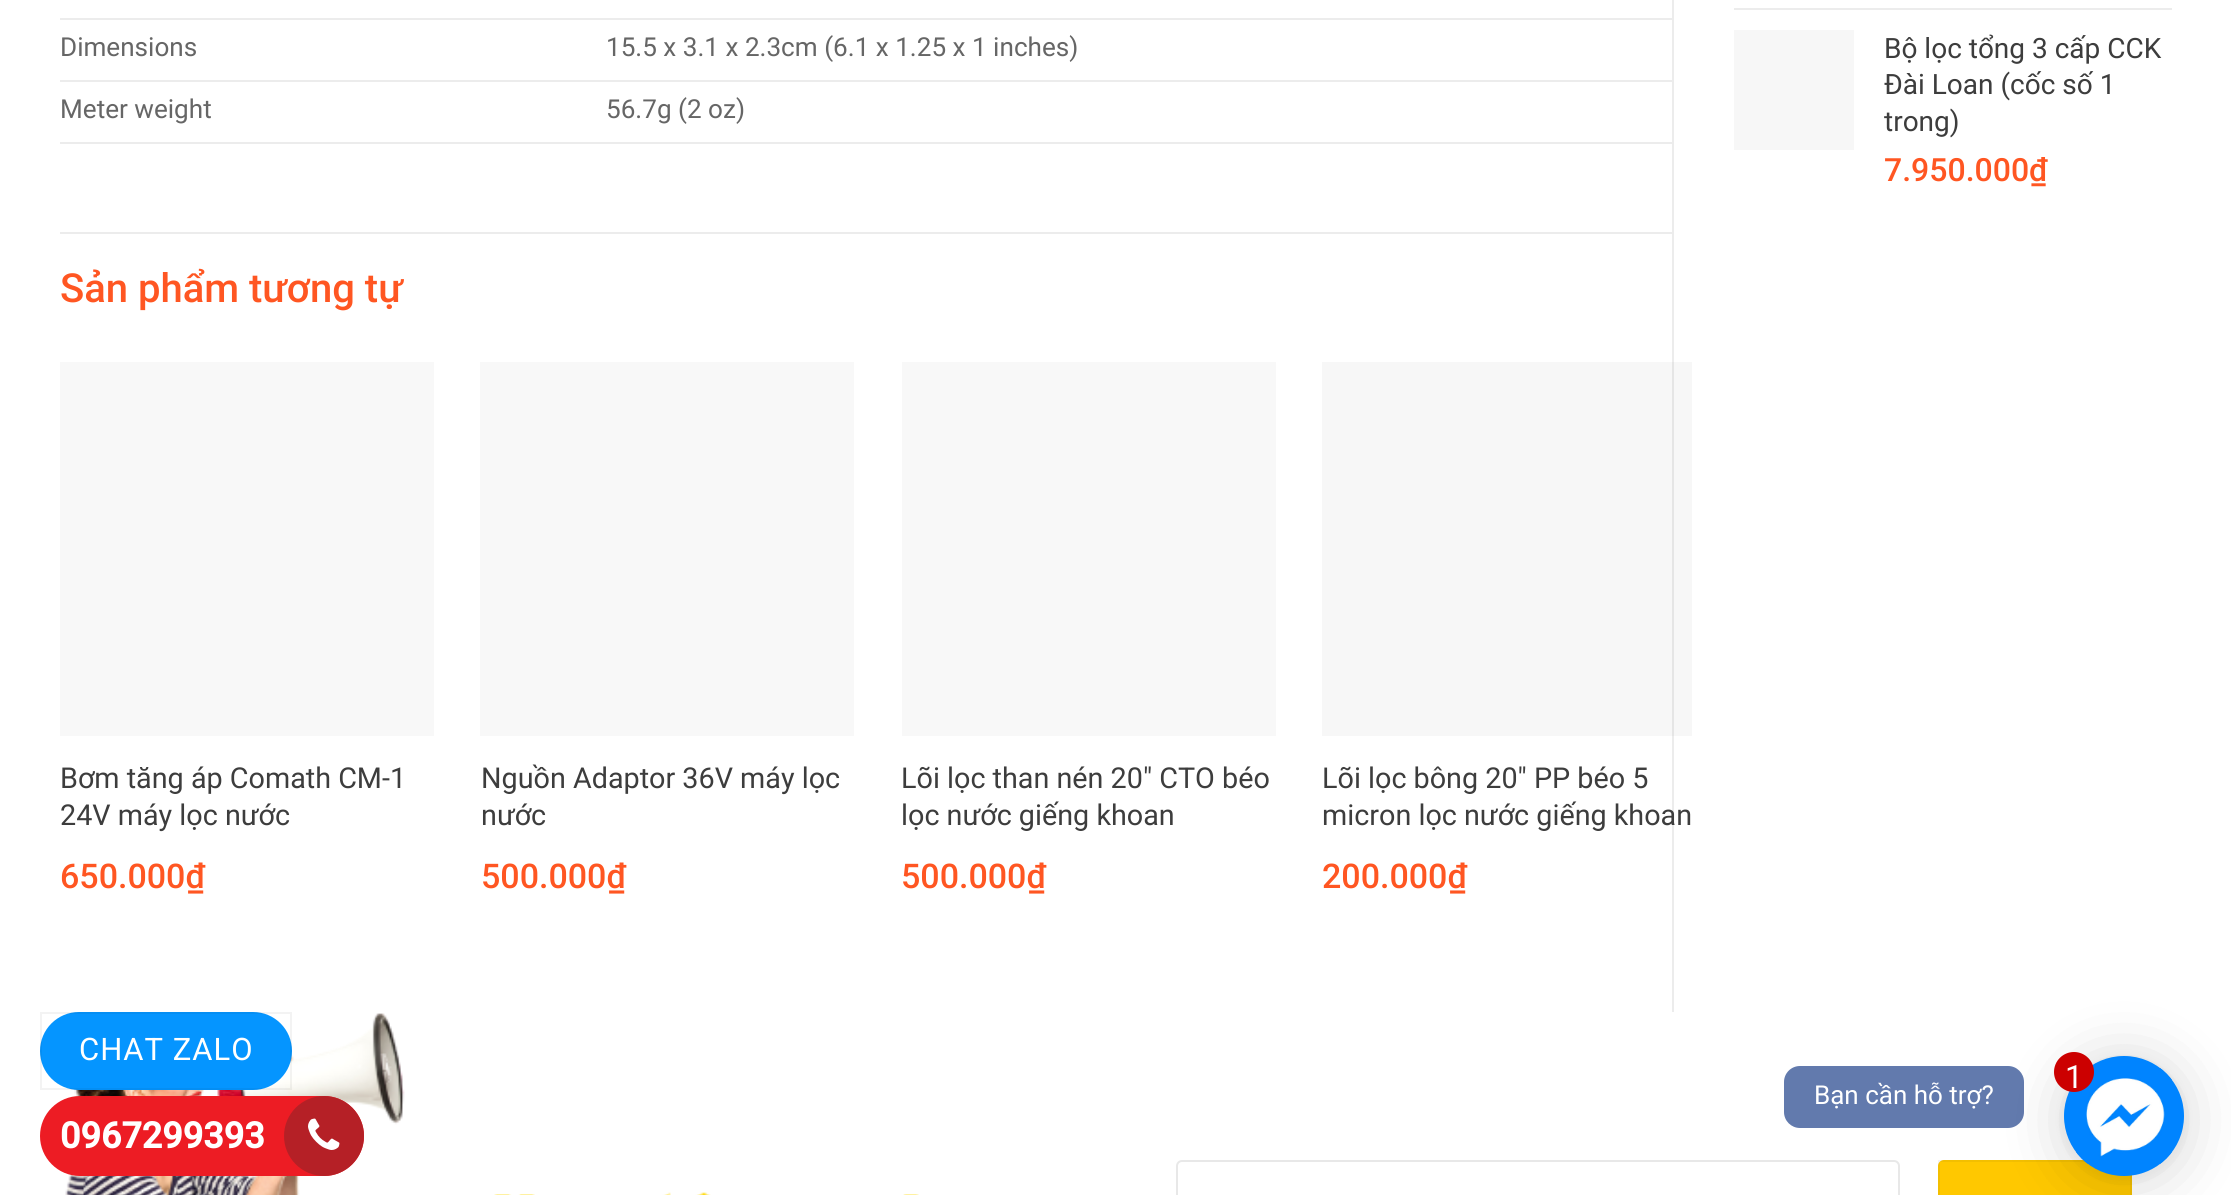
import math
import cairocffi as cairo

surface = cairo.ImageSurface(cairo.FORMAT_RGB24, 2231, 1195)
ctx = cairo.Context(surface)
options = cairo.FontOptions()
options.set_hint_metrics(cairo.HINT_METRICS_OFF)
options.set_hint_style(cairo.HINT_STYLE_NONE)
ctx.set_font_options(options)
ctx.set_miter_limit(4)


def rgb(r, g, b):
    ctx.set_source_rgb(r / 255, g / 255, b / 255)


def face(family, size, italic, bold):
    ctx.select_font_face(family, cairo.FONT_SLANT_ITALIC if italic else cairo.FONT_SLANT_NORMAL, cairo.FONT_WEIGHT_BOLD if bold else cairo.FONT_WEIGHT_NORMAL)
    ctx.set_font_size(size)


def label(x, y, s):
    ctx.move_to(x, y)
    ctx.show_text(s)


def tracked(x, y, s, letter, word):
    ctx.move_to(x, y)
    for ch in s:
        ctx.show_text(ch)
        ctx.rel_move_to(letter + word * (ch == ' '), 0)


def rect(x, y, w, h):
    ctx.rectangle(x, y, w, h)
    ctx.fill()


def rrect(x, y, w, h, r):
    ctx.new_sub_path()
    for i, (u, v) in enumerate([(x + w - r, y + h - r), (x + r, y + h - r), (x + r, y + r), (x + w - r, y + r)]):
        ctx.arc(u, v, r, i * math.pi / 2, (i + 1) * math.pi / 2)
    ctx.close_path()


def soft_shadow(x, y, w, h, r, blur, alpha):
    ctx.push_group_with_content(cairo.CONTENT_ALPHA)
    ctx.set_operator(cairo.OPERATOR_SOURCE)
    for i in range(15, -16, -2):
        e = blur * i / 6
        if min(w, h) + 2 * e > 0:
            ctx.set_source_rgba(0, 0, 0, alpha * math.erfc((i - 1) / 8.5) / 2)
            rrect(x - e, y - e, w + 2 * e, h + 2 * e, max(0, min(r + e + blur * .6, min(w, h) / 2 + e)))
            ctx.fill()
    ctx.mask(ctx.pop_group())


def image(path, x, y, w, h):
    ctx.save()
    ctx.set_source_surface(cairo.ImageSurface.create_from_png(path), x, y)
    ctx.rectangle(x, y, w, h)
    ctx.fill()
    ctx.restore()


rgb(255, 255, 255)
ctx.paint()
rgb(247, 247, 247)
rect(1322, 362, 370, 374)
rgb(236, 236, 236)
rect(1672, 0, 2, 1012)
rgb(229, 229, 229)
rect(1672, 362, 2, 374)
rgb(236, 236, 236)
rect(60, 18, 1612, 2)
rect(60, 80, 1612, 2)
face('Roboto', 26.1, 0, 0)
rgb(102, 102, 102)
label(60, 56, 'Dimensions')
label(606, 56, '15.5 x 3.1 x 2.3cm (6.1 x 1.25 x 1 inches)')
rgb(236, 236, 236)
rect(60, 142, 1612, 2)
rgb(102, 102, 102)
label(60, 118, 'Meter weight')
label(606, 118, '56.7g (2 oz)')
rgb(236, 236, 236)
rect(60, 232, 1612, 2)
face('Roboto Medium', 40, 0, 0)
rgb(255, 86, 34)
label(60, 302, 'Sản phẩm tương tự')
rgb(248, 248, 248)
rect(60, 362, 374, 374)
face('Roboto', 28.75, 0, 0)
rgb(61, 61, 61)
label(60, 788, 'Bơm tăng áp Comath CM-1')
label(60, 825, '24V máy lọc nước')
face('Roboto Medium', 34, 0, 0)
rgb(255, 86, 34)
label(60, 888, '650.000₫')
rgb(248, 248, 248)
rect(480, 362, 374, 374)
face('Roboto', 28.75, 0, 0)
rgb(61, 61, 61)
label(481, 788, 'Nguồn Adaptor 36V máy lọc')
label(481, 825, 'nước')
face('Roboto Medium', 34, 0, 0)
rgb(255, 86, 34)
label(481, 888, '500.000₫')
rgb(248, 248, 248)
rect(902, 362, 374, 374)
face('Roboto', 28.75, 0, 0)
rgb(61, 61, 61)
label(901, 788, 'Lõi lọc than nén 20″ CTO béo')
label(901, 825, 'lọc nước giếng khoan')
face('Roboto Medium', 34, 0, 0)
rgb(255, 86, 34)
label(901, 888, '500.000₫')
face('Roboto', 28.75, 0, 0)
rgb(61, 61, 61)
label(1322, 788, 'Lõi lọc bông 20″ PP béo 5')
label(1322, 825, 'micron lọc nước giếng khoan')
face('Roboto Medium', 34, 0, 0)
rgb(255, 86, 34)
label(1322, 888, '200.000₫')
rgb(236, 236, 236)
rect(1734, 8, 438, 2)
rgb(247, 247, 247)
rect(1734, 30, 120, 120)
face('Roboto', 28, 0, 0)
rgb(61, 61, 61)
label(1884, 58, 'Bộ lọc tổng 3 cấp CCK')
label(1884, 94, 'Đài Loan (cốc số 1')
label(1884, 131, 'trong)')
face('Roboto Medium', 32, 0, 0)
rgb(255, 86, 34)
label(1884, 181, '7.950.000₫')
image('image0.png', 65, 1013, 854, 182)
rrect(1177, 1161, 722, 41, 5)
rgb(232, 232, 232)
ctx.stroke()
rgb(255, 200, 0)
rrect(1938, 1160, 194, 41, 6)
ctx.fill()
ctx.rectangle(1939, 1161, 192, 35)
ctx.set_source_rgba(0, 0, 0, 0.05)
ctx.stroke()
rgb(5, 149, 255)
rrect(40, 1012, 252, 78, 39)
ctx.fill()
ctx.rectangle(41, 1013, 250, 76)
ctx.set_source_rgba(0, 0, 0, 0.05)
ctx.stroke()
face('Roboto', 31, 0, 0)
rgb(255, 255, 255)
tracked(79, 1060, 'CHAT ZALO', 1, 0)
rgb(0, 0, 0)
soft_shadow(2064, 1060, 120, 120, 60, 32, 0.16)
soft_shadow(2064, 1058, 120, 120, 60, 6, 0.06)
rgb(0, 132, 255)
ctx.arc(2124, 1116, 60, 0, 2 * math.pi)
ctx.fill()
image('image1.png', 2076, 1068, 96, 96)
rgb(204, 0, 0)
ctx.arc(2074, 1072, 20, 0, 2 * math.pi)
ctx.fill()
face('Roboto', 32, 0, 0)
rgb(255, 255, 255)
label(2065, 1088, '1')
ctx.set_source_rgba(0.231, 0.349, 0.596, 0.8)
rrect(1784, 1066, 240, 62, 16)
ctx.fill()
face('Roboto', 26, 0, 0)
rgb(255, 255, 255)
label(1814, 1104, 'Bạn cần hỗ trợ?')
rgb(237, 28, 36)
rrect(40, 1096, 324, 80, 40)
ctx.fill()
face('Roboto', 36, 0, 1)
rgb(255, 255, 255)
label(60, 1148, '0967299393')
rgb(181, 32, 38)
ctx.new_path()
ctx.arc(324, 1136, 40, 0, 2 * math.pi)
ctx.fill()
image('image2.png', 308, 1118, 32, 32)
surface.write_to_png('render.png')
